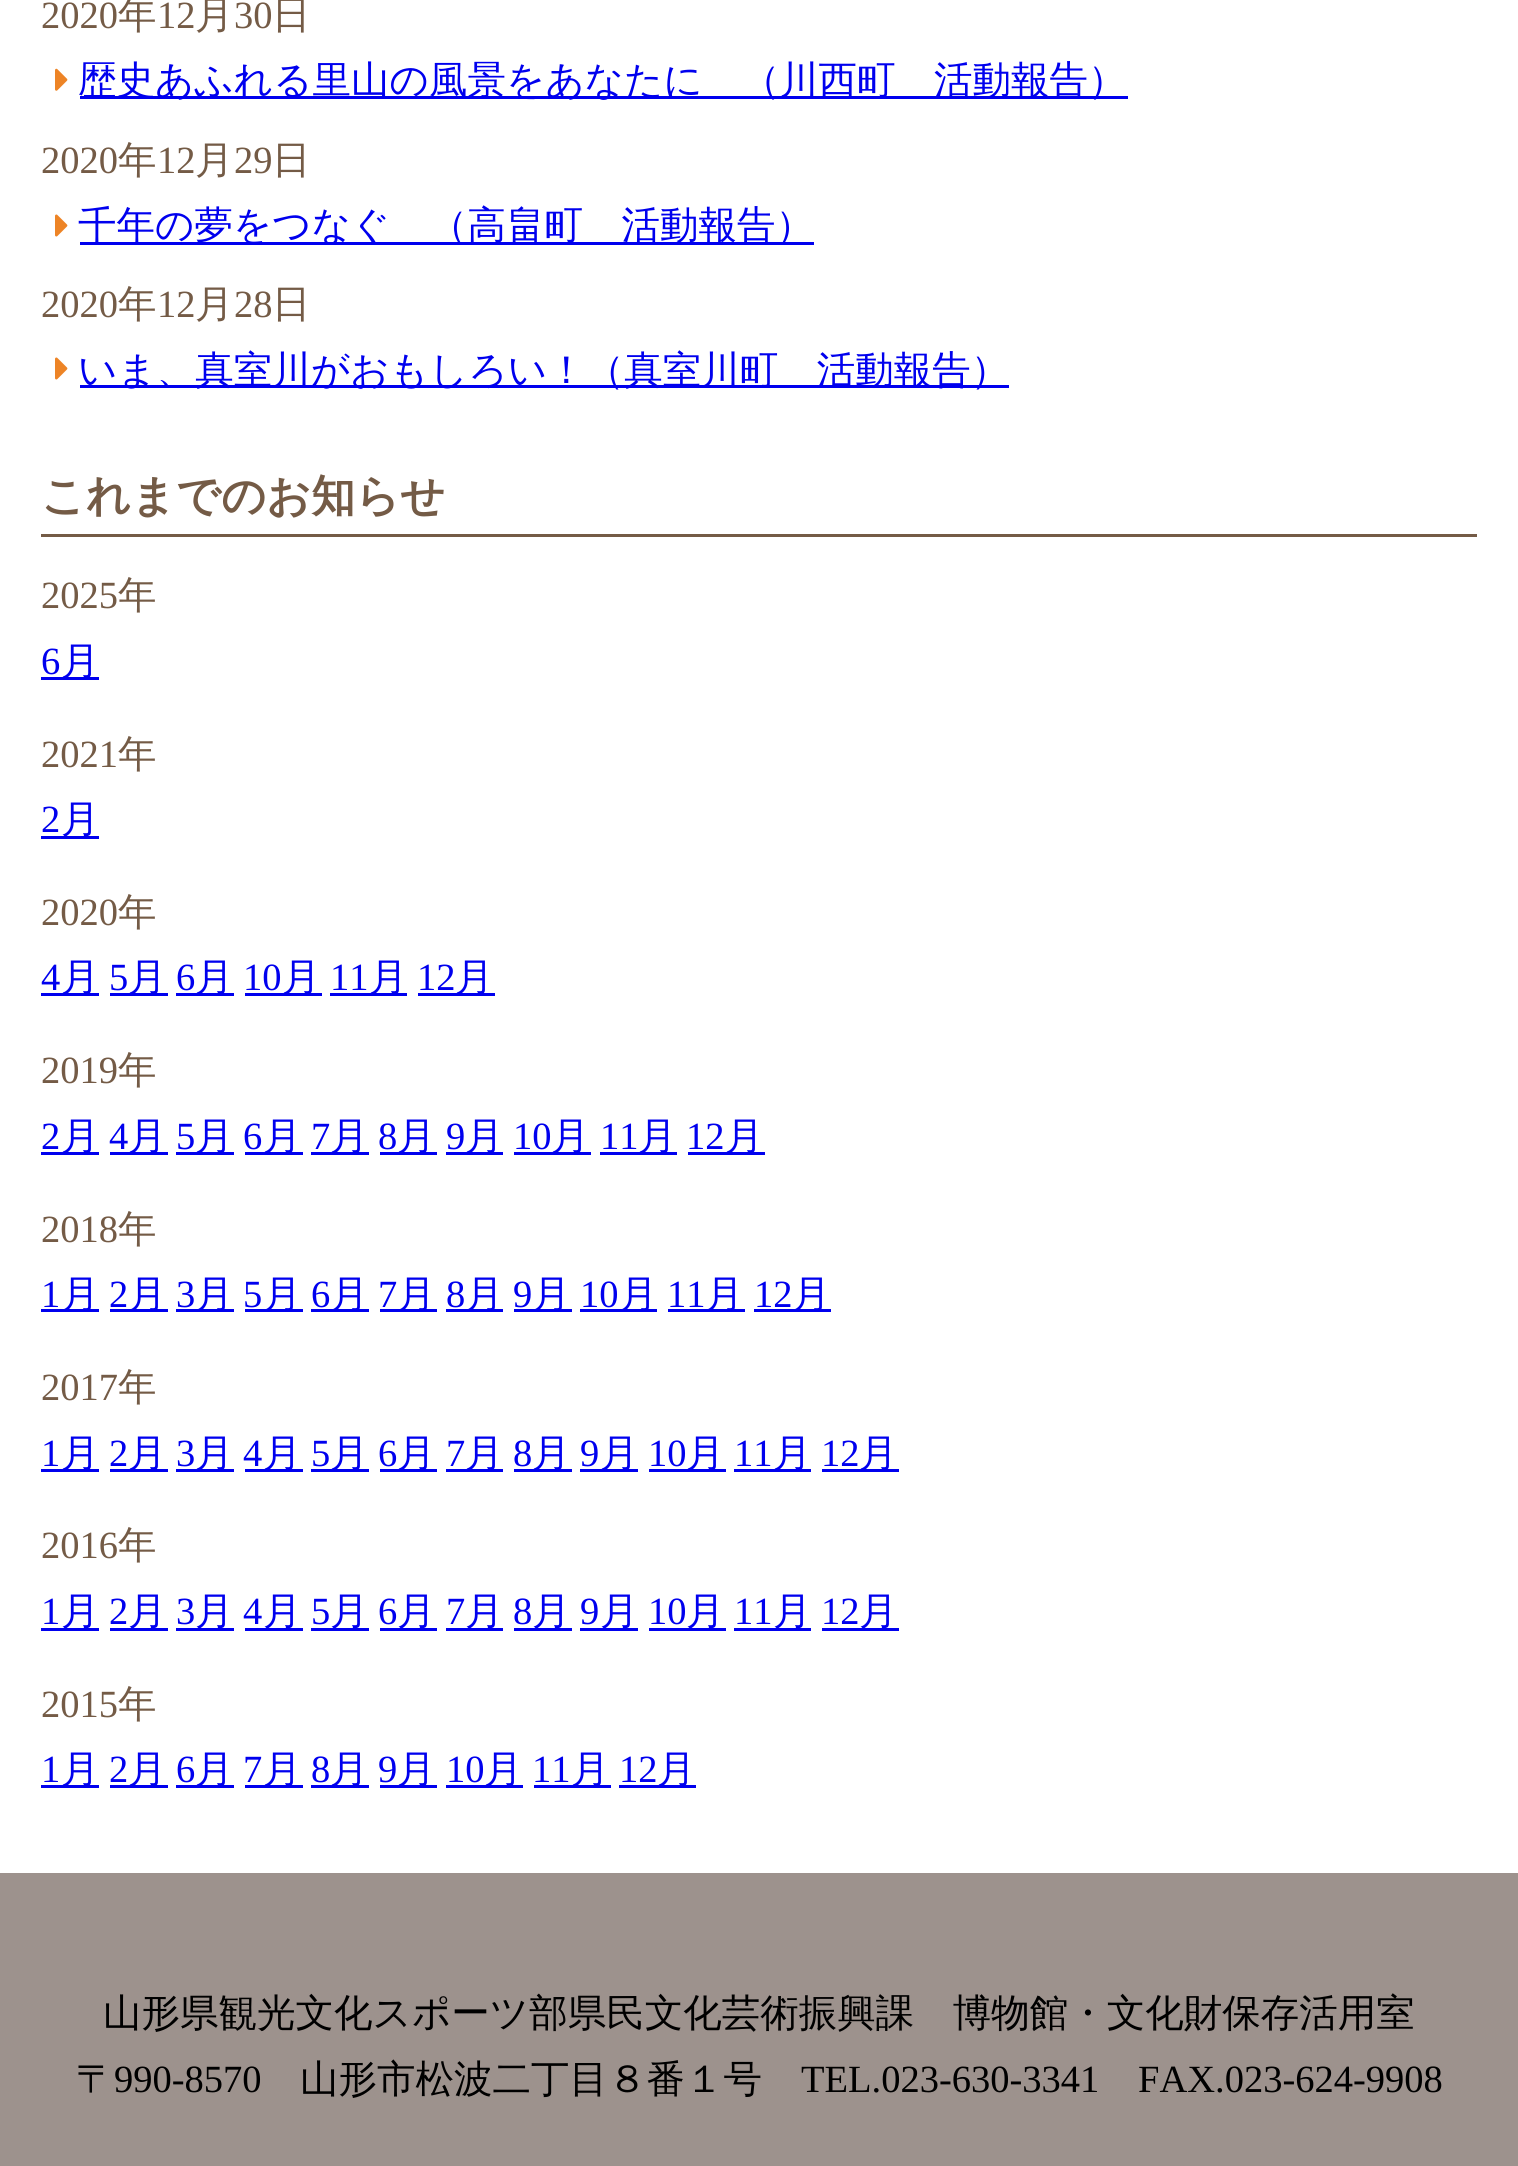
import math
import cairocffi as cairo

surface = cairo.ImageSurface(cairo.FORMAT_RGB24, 1518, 2166)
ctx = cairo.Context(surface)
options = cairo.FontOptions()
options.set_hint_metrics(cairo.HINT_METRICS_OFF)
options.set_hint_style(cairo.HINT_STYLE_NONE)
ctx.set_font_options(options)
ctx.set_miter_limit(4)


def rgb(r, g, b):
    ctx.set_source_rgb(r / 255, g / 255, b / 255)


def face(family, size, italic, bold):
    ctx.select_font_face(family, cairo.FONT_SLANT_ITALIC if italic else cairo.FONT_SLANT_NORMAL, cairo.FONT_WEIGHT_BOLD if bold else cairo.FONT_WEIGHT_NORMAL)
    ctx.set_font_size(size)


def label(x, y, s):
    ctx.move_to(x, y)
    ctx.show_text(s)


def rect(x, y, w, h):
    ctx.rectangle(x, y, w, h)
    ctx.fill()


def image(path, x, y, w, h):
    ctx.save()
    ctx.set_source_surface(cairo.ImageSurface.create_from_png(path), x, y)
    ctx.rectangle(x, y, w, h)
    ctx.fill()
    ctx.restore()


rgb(255, 255, 255)
ctx.paint()
face('Liberation Serif', 38.5, 0, 0)
rgb(116, 91, 70)
label(41, 28, '2020')
face('WenQuanYi Zen Hei Medium', 38.5, 0, 0)
label(118, 28, '年')
face('Liberation Serif', 38.5, 0, 0)
label(157, 28, '12')
face('WenQuanYi Zen Hei Medium', 38.5, 0, 0)
label(195, 28, '月')
face('Liberation Serif', 38.5, 0, 0)
label(234, 28, '30')
face('WenQuanYi Zen Hei Medium', 38.5, 0, 0)
label(272, 28, '日')
image('image0.png', 55, 68, 13, 23)
rgb(0, 0, 238)
rect(80, 96, 1048, 3)
label(78, 93, '歴史あふれる里山の風景をあなたに　（川西町　活動報告）')
face('Liberation Serif', 38.5, 0, 0)
rgb(116, 91, 70)
label(41, 173, '2020')
face('WenQuanYi Zen Hei Medium', 38.5, 0, 0)
label(118, 173, '年')
face('Liberation Serif', 38.5, 0, 0)
label(157, 173, '12')
face('WenQuanYi Zen Hei Medium', 38.5, 0, 0)
label(195, 173, '月')
face('Liberation Serif', 38.5, 0, 0)
label(234, 173, '29')
face('WenQuanYi Zen Hei Medium', 38.5, 0, 0)
label(272, 173, '日')
image('image1.png', 55, 214, 13, 23)
rgb(0, 0, 238)
rect(80, 242, 734, 3)
label(78, 238, '千年の夢をつなぐ　（高畠町　活動報告）')
face('Liberation Serif', 38.5, 0, 0)
rgb(116, 91, 70)
label(41, 317, '2020')
face('WenQuanYi Zen Hei Medium', 38.5, 0, 0)
label(118, 317, '年')
face('Liberation Serif', 38.5, 0, 0)
label(157, 317, '12')
face('WenQuanYi Zen Hei Medium', 38.5, 0, 0)
label(195, 317, '月')
face('Liberation Serif', 38.5, 0, 0)
label(234, 317, '28')
face('WenQuanYi Zen Hei Medium', 38.5, 0, 0)
label(272, 317, '日')
image('image1.png', 55, 357, 13, 23)
rgb(0, 0, 238)
rect(80, 385, 929, 3)
label(78, 383, 'いま、真室川がおもしろい！（真室川町　活動報告）')
rgb(116, 91, 70)
rect(41, 534, 1436, 3)
face('WenQuanYi Zen Hei', 44, 0, 1)
label(41, 511, 'これまでのお知らせ')
face('Liberation Serif', 38.5, 0, 0)
label(41, 608, '2025')
face('WenQuanYi Zen Hei Medium', 38.5, 0, 0)
label(118, 608, '年')
face('Liberation Serif', 38.5, 0, 0)
rgb(0, 0, 238)
label(41, 674, '6')
rect(41, 677, 58, 3)
face('WenQuanYi Zen Hei Medium', 38.5, 0, 0)
label(61, 674, '月')
face('Liberation Serif', 38.5, 0, 0)
rgb(116, 91, 70)
label(41, 767, '2021')
face('WenQuanYi Zen Hei Medium', 38.5, 0, 0)
label(118, 767, '年')
face('Liberation Serif', 38.5, 0, 0)
rgb(0, 0, 238)
label(41, 832, '2')
rect(41, 836, 58, 3)
face('WenQuanYi Zen Hei Medium', 38.5, 0, 0)
label(61, 832, '月')
face('Liberation Serif', 38.5, 0, 0)
rgb(116, 91, 70)
label(41, 925, '2020')
face('WenQuanYi Zen Hei Medium', 38.5, 0, 0)
label(118, 925, '年')
face('Liberation Serif', 38.5, 0, 0)
rgb(0, 0, 238)
label(41, 990, '4')
rect(41, 993, 58, 3)
face('WenQuanYi Zen Hei Medium', 38.5, 0, 0)
label(61, 990, '月')
face('Liberation Serif', 38.5, 0, 0)
label(109, 990, '5')
rect(110, 993, 58, 3)
face('WenQuanYi Zen Hei Medium', 38.5, 0, 0)
label(128, 990, '月')
face('Liberation Serif', 38.5, 0, 0)
label(176, 990, '6')
rect(176, 993, 58, 3)
face('WenQuanYi Zen Hei Medium', 38.5, 0, 0)
label(195, 990, '月')
face('Liberation Serif', 38.5, 0, 0)
label(243, 990, '10')
rect(245, 993, 77, 3)
face('WenQuanYi Zen Hei Medium', 38.5, 0, 0)
label(282, 990, '月')
face('Liberation Serif', 38.5, 0, 0)
label(330, 990, '11')
rect(330, 993, 77, 3)
face('WenQuanYi Zen Hei Medium', 38.5, 0, 0)
label(369, 990, '月')
face('Liberation Serif', 38.5, 0, 0)
label(417, 990, '12')
rect(418, 993, 77, 3)
face('WenQuanYi Zen Hei Medium', 38.5, 0, 0)
label(455, 990, '月')
face('Liberation Serif', 38.5, 0, 0)
rgb(116, 91, 70)
label(41, 1083, '2019')
face('WenQuanYi Zen Hei Medium', 38.5, 0, 0)
label(118, 1083, '年')
face('Liberation Serif', 38.5, 0, 0)
rgb(0, 0, 238)
label(41, 1149, '2')
rect(41, 1152, 58, 3)
face('WenQuanYi Zen Hei Medium', 38.5, 0, 0)
label(61, 1149, '月')
face('Liberation Serif', 38.5, 0, 0)
label(109, 1149, '4')
rect(110, 1152, 58, 3)
face('WenQuanYi Zen Hei Medium', 38.5, 0, 0)
label(128, 1149, '月')
face('Liberation Serif', 38.5, 0, 0)
label(176, 1149, '5')
rect(176, 1152, 58, 3)
face('WenQuanYi Zen Hei Medium', 38.5, 0, 0)
label(195, 1149, '月')
face('Liberation Serif', 38.5, 0, 0)
label(243, 1149, '6')
rect(245, 1152, 58, 3)
face('WenQuanYi Zen Hei Medium', 38.5, 0, 0)
label(263, 1149, '月')
face('Liberation Serif', 38.5, 0, 0)
label(311, 1149, '7')
rect(311, 1152, 58, 3)
face('WenQuanYi Zen Hei Medium', 38.5, 0, 0)
label(330, 1149, '月')
face('Liberation Serif', 38.5, 0, 0)
label(378, 1149, '8')
rect(380, 1152, 57, 3)
face('WenQuanYi Zen Hei Medium', 38.5, 0, 0)
label(397, 1149, '月')
face('Liberation Serif', 38.5, 0, 0)
label(446, 1149, '9')
rect(446, 1152, 57, 3)
face('WenQuanYi Zen Hei Medium', 38.5, 0, 0)
label(465, 1149, '月')
face('Liberation Serif', 38.5, 0, 0)
label(513, 1149, '10')
rect(514, 1152, 77, 3)
face('WenQuanYi Zen Hei Medium', 38.5, 0, 0)
label(551, 1149, '月')
face('Liberation Serif', 38.5, 0, 0)
label(600, 1149, '11')
rect(600, 1152, 77, 3)
face('WenQuanYi Zen Hei Medium', 38.5, 0, 0)
label(638, 1149, '月')
face('Liberation Serif', 38.5, 0, 0)
label(686, 1149, '12')
rect(688, 1152, 77, 3)
face('WenQuanYi Zen Hei Medium', 38.5, 0, 0)
label(725, 1149, '月')
face('Liberation Serif', 38.5, 0, 0)
rgb(116, 91, 70)
label(41, 1242, '2018')
face('WenQuanYi Zen Hei Medium', 38.5, 0, 0)
label(118, 1242, '年')
face('Liberation Serif', 38.5, 0, 0)
rgb(0, 0, 238)
label(41, 1307, '1')
rect(41, 1309, 58, 3)
face('WenQuanYi Zen Hei Medium', 38.5, 0, 0)
label(61, 1307, '月')
face('Liberation Serif', 38.5, 0, 0)
label(109, 1307, '2')
rect(110, 1309, 58, 3)
face('WenQuanYi Zen Hei Medium', 38.5, 0, 0)
label(128, 1307, '月')
face('Liberation Serif', 38.5, 0, 0)
label(176, 1307, '3')
rect(176, 1309, 58, 3)
face('WenQuanYi Zen Hei Medium', 38.5, 0, 0)
label(195, 1307, '月')
face('Liberation Serif', 38.5, 0, 0)
label(243, 1307, '5')
rect(245, 1309, 58, 3)
face('WenQuanYi Zen Hei Medium', 38.5, 0, 0)
label(263, 1307, '月')
face('Liberation Serif', 38.5, 0, 0)
label(311, 1307, '6')
rect(311, 1309, 58, 3)
face('WenQuanYi Zen Hei Medium', 38.5, 0, 0)
label(330, 1307, '月')
face('Liberation Serif', 38.5, 0, 0)
label(378, 1307, '7')
rect(380, 1309, 57, 3)
face('WenQuanYi Zen Hei Medium', 38.5, 0, 0)
label(397, 1307, '月')
face('Liberation Serif', 38.5, 0, 0)
label(446, 1307, '8')
rect(446, 1309, 57, 3)
face('WenQuanYi Zen Hei Medium', 38.5, 0, 0)
label(465, 1307, '月')
face('Liberation Serif', 38.5, 0, 0)
label(513, 1307, '9')
rect(514, 1309, 58, 3)
face('WenQuanYi Zen Hei Medium', 38.5, 0, 0)
label(532, 1307, '月')
face('Liberation Serif', 38.5, 0, 0)
label(580, 1307, '10')
rect(580, 1309, 77, 3)
face('WenQuanYi Zen Hei Medium', 38.5, 0, 0)
label(619, 1307, '月')
face('Liberation Serif', 38.5, 0, 0)
label(667, 1307, '11')
rect(668, 1309, 77, 3)
face('WenQuanYi Zen Hei Medium', 38.5, 0, 0)
label(705, 1307, '月')
face('Liberation Serif', 38.5, 0, 0)
label(754, 1307, '12')
rect(754, 1309, 77, 3)
face('WenQuanYi Zen Hei Medium', 38.5, 0, 0)
label(792, 1307, '月')
face('Liberation Serif', 38.5, 0, 0)
rgb(116, 91, 70)
label(41, 1400, '2017')
face('WenQuanYi Zen Hei Medium', 38.5, 0, 0)
label(118, 1400, '年')
face('Liberation Serif', 38.5, 0, 0)
rgb(0, 0, 238)
label(41, 1466, '1')
rect(41, 1469, 58, 3)
face('WenQuanYi Zen Hei Medium', 38.5, 0, 0)
label(61, 1466, '月')
face('Liberation Serif', 38.5, 0, 0)
label(109, 1466, '2')
rect(110, 1469, 58, 3)
face('WenQuanYi Zen Hei Medium', 38.5, 0, 0)
label(128, 1466, '月')
face('Liberation Serif', 38.5, 0, 0)
label(176, 1466, '3')
rect(176, 1469, 58, 3)
face('WenQuanYi Zen Hei Medium', 38.5, 0, 0)
label(195, 1466, '月')
face('Liberation Serif', 38.5, 0, 0)
label(243, 1466, '4')
rect(245, 1469, 58, 3)
face('WenQuanYi Zen Hei Medium', 38.5, 0, 0)
label(263, 1466, '月')
face('Liberation Serif', 38.5, 0, 0)
label(311, 1466, '5')
rect(311, 1469, 58, 3)
face('WenQuanYi Zen Hei Medium', 38.5, 0, 0)
label(330, 1466, '月')
face('Liberation Serif', 38.5, 0, 0)
label(378, 1466, '6')
rect(380, 1469, 57, 3)
face('WenQuanYi Zen Hei Medium', 38.5, 0, 0)
label(397, 1466, '月')
face('Liberation Serif', 38.5, 0, 0)
label(446, 1466, '7')
rect(446, 1469, 57, 3)
face('WenQuanYi Zen Hei Medium', 38.5, 0, 0)
label(465, 1466, '月')
face('Liberation Serif', 38.5, 0, 0)
label(513, 1466, '8')
rect(514, 1469, 58, 3)
face('WenQuanYi Zen Hei Medium', 38.5, 0, 0)
label(532, 1466, '月')
face('Liberation Serif', 38.5, 0, 0)
label(580, 1466, '9')
rect(580, 1469, 58, 3)
face('WenQuanYi Zen Hei Medium', 38.5, 0, 0)
label(600, 1466, '月')
face('Liberation Serif', 38.5, 0, 0)
label(648, 1466, '10')
rect(649, 1469, 77, 3)
face('WenQuanYi Zen Hei Medium', 38.5, 0, 0)
label(686, 1466, '月')
face('Liberation Serif', 38.5, 0, 0)
label(734, 1466, '11')
rect(734, 1469, 77, 3)
face('WenQuanYi Zen Hei Medium', 38.5, 0, 0)
label(773, 1466, '月')
face('Liberation Serif', 38.5, 0, 0)
label(821, 1466, '12')
rect(822, 1469, 77, 3)
face('WenQuanYi Zen Hei Medium', 38.5, 0, 0)
label(859, 1466, '月')
face('Liberation Serif', 38.5, 0, 0)
rgb(116, 91, 70)
label(41, 1558, '2016')
face('WenQuanYi Zen Hei Medium', 38.5, 0, 0)
label(118, 1558, '年')
face('Liberation Serif', 38.5, 0, 0)
rgb(0, 0, 238)
label(41, 1624, '1')
rect(41, 1628, 58, 3)
face('WenQuanYi Zen Hei Medium', 38.5, 0, 0)
label(61, 1624, '月')
face('Liberation Serif', 38.5, 0, 0)
label(109, 1624, '2')
rect(110, 1628, 58, 3)
face('WenQuanYi Zen Hei Medium', 38.5, 0, 0)
label(128, 1624, '月')
face('Liberation Serif', 38.5, 0, 0)
label(176, 1624, '3')
rect(176, 1628, 58, 3)
face('WenQuanYi Zen Hei Medium', 38.5, 0, 0)
label(195, 1624, '月')
face('Liberation Serif', 38.5, 0, 0)
label(243, 1624, '4')
rect(245, 1628, 58, 3)
face('WenQuanYi Zen Hei Medium', 38.5, 0, 0)
label(263, 1624, '月')
face('Liberation Serif', 38.5, 0, 0)
label(311, 1624, '5')
rect(311, 1628, 58, 3)
face('WenQuanYi Zen Hei Medium', 38.5, 0, 0)
label(330, 1624, '月')
face('Liberation Serif', 38.5, 0, 0)
label(378, 1624, '6')
rect(380, 1628, 57, 3)
face('WenQuanYi Zen Hei Medium', 38.5, 0, 0)
label(397, 1624, '月')
face('Liberation Serif', 38.5, 0, 0)
label(446, 1624, '7')
rect(446, 1628, 57, 3)
face('WenQuanYi Zen Hei Medium', 38.5, 0, 0)
label(465, 1624, '月')
face('Liberation Serif', 38.5, 0, 0)
label(513, 1624, '8')
rect(514, 1628, 58, 3)
face('WenQuanYi Zen Hei Medium', 38.5, 0, 0)
label(532, 1624, '月')
face('Liberation Serif', 38.5, 0, 0)
label(580, 1624, '9')
rect(580, 1628, 58, 3)
face('WenQuanYi Zen Hei Medium', 38.5, 0, 0)
label(600, 1624, '月')
face('Liberation Serif', 38.5, 0, 0)
label(648, 1624, '10')
rect(649, 1628, 77, 3)
face('WenQuanYi Zen Hei Medium', 38.5, 0, 0)
label(686, 1624, '月')
face('Liberation Serif', 38.5, 0, 0)
label(734, 1624, '11')
rect(734, 1628, 77, 3)
face('WenQuanYi Zen Hei Medium', 38.5, 0, 0)
label(773, 1624, '月')
face('Liberation Serif', 38.5, 0, 0)
label(821, 1624, '12')
rect(822, 1628, 77, 3)
face('WenQuanYi Zen Hei Medium', 38.5, 0, 0)
label(859, 1624, '月')
face('Liberation Serif', 38.5, 0, 0)
rgb(116, 91, 70)
label(41, 1717, '2015')
face('WenQuanYi Zen Hei Medium', 38.5, 0, 0)
label(118, 1717, '年')
face('Liberation Serif', 38.5, 0, 0)
rgb(0, 0, 238)
label(41, 1782, '1')
rect(41, 1785, 58, 3)
face('WenQuanYi Zen Hei Medium', 38.5, 0, 0)
label(61, 1782, '月')
face('Liberation Serif', 38.5, 0, 0)
label(109, 1782, '2')
rect(110, 1785, 58, 3)
face('WenQuanYi Zen Hei Medium', 38.5, 0, 0)
label(128, 1782, '月')
face('Liberation Serif', 38.5, 0, 0)
label(176, 1782, '6')
rect(176, 1785, 58, 3)
face('WenQuanYi Zen Hei Medium', 38.5, 0, 0)
label(195, 1782, '月')
face('Liberation Serif', 38.5, 0, 0)
label(243, 1782, '7')
rect(245, 1785, 58, 3)
face('WenQuanYi Zen Hei Medium', 38.5, 0, 0)
label(263, 1782, '月')
face('Liberation Serif', 38.5, 0, 0)
label(311, 1782, '8')
rect(311, 1785, 58, 3)
face('WenQuanYi Zen Hei Medium', 38.5, 0, 0)
label(330, 1782, '月')
face('Liberation Serif', 38.5, 0, 0)
label(378, 1782, '9')
rect(380, 1785, 57, 3)
face('WenQuanYi Zen Hei Medium', 38.5, 0, 0)
label(397, 1782, '月')
face('Liberation Serif', 38.5, 0, 0)
label(446, 1782, '10')
rect(446, 1785, 77, 3)
face('WenQuanYi Zen Hei Medium', 38.5, 0, 0)
label(484, 1782, '月')
face('Liberation Serif', 38.5, 0, 0)
label(532, 1782, '11')
rect(534, 1785, 77, 3)
face('WenQuanYi Zen Hei Medium', 38.5, 0, 0)
label(571, 1782, '月')
face('Liberation Serif', 38.5, 0, 0)
label(619, 1782, '12')
rect(619, 1785, 77, 3)
face('WenQuanYi Zen Hei Medium', 38.5, 0, 0)
label(657, 1782, '月')
rgb(157, 146, 141)
rect(0, 1873, 1518, 293)
rgb(0, 0, 0)
label(103, 2026, '山形県観光文化スポーツ部県民文化芸術振興課　博物館・文化財保存活用室')
label(76, 2092, '〒')
face('Liberation Serif', 38.5, 0, 0)
label(114, 2092, '990-8570')
face('WenQuanYi Zen Hei Medium', 38.5, 0, 0)
label(300, 2092, '山形市松波二丁目８番１号')
face('Liberation Serif', 38.5, 0, 0)
label(801, 2092, 'TEL.023-630-3341')
label(1138, 2092, 'FAX.023-624-9908')
surface.write_to_png('render.png')
